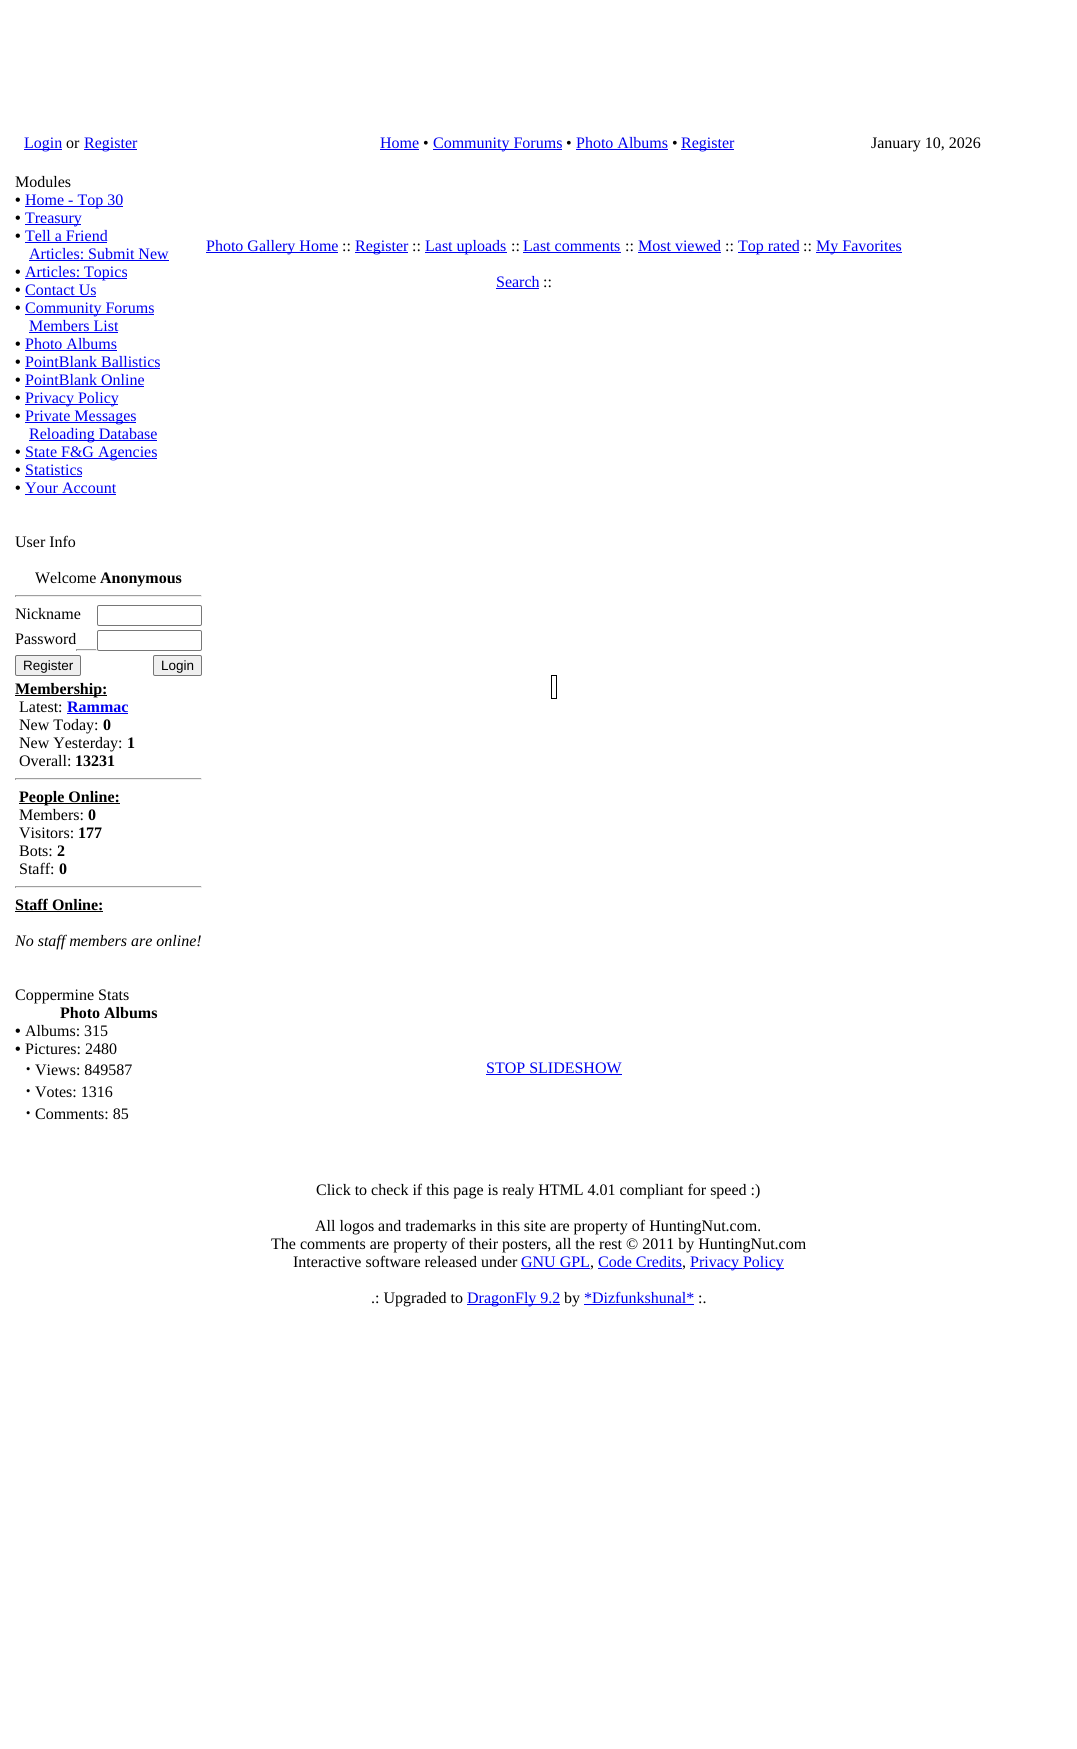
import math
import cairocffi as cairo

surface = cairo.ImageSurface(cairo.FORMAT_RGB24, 1077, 1749)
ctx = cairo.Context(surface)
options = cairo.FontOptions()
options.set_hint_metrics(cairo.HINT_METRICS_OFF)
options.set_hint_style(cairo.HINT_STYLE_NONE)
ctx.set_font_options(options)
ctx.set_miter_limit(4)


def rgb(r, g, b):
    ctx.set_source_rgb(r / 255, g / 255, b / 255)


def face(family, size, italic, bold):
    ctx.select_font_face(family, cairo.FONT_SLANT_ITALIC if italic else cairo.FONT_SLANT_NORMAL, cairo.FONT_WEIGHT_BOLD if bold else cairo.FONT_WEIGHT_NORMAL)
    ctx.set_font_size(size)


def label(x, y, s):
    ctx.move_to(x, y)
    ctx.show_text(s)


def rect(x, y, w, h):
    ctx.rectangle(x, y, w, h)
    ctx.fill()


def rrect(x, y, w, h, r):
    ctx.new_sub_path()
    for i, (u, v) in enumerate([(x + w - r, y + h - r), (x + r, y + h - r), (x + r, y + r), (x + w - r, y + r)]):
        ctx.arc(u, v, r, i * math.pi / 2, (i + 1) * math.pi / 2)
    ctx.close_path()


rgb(255, 255, 255)
ctx.paint()
rgb(0, 0, 238)
rect(24, 149, 38, 1)
face('Liberation Serif', 16, 0, 0)
label(24, 148, 'Login')
rgb(0, 0, 0)
label(66, 148, 'or')
rgb(0, 0, 238)
rect(84, 149, 53, 1)
label(84, 148, 'Register')
label(380, 148, 'Home')
rect(380, 149, 39, 1)
rgb(0, 0, 0)
label(423, 148, '•')
rgb(0, 0, 238)
rect(433, 149, 129, 1)
label(433, 148, 'Community Forums')
rgb(0, 0, 0)
label(566, 148, '•')
rgb(0, 0, 238)
label(576, 148, 'Photo Albums')
rect(576, 149, 92, 1)
rgb(0, 0, 0)
label(672, 148, '•')
rgb(0, 0, 238)
rect(681, 149, 53, 1)
label(681, 148, 'Register')
rgb(0, 0, 0)
label(871, 148, 'January 10, 2026')
label(15, 187, 'Modules')
face('Liberation Serif', 16, 0, 1)
label(15, 205, '•')
rgb(0, 0, 238)
rect(25, 206, 98, 1)
face('Liberation Serif', 16, 0, 0)
label(25, 205, 'Home - Top 30')
face('Liberation Serif', 16, 0, 1)
rgb(0, 0, 0)
label(15, 223, '•')
rgb(0, 0, 238)
rect(25, 224, 56, 1)
face('Liberation Serif', 16, 0, 0)
label(25, 223, 'Treasury')
face('Liberation Serif', 16, 0, 1)
rgb(0, 0, 0)
label(15, 241, '•')
face('Liberation Serif', 16, 0, 0)
rgb(0, 0, 238)
label(25, 241, 'Tell a Friend')
rect(25, 242, 82, 1)
label(29, 259, 'Articles: Submit New')
rect(29, 260, 140, 1)
face('Liberation Serif', 16, 0, 1)
rgb(0, 0, 0)
label(15, 277, '•')
rgb(0, 0, 238)
rect(25, 278, 102, 1)
face('Liberation Serif', 16, 0, 0)
label(25, 277, 'Articles: Topics')
face('Liberation Serif', 16, 0, 1)
rgb(0, 0, 0)
label(15, 295, '•')
face('Liberation Serif', 16, 0, 0)
rgb(0, 0, 238)
label(25, 295, 'Contact Us')
rect(25, 296, 71, 1)
face('Liberation Serif', 16, 0, 1)
rgb(0, 0, 0)
label(15, 313, '•')
rgb(0, 0, 238)
rect(25, 314, 129, 1)
face('Liberation Serif', 16, 0, 0)
label(25, 313, 'Community Forums')
label(29, 331, 'Members List')
rect(29, 332, 89, 1)
face('Liberation Serif', 16, 0, 1)
rgb(0, 0, 0)
label(15, 349, '•')
face('Liberation Serif', 16, 0, 0)
rgb(0, 0, 238)
label(25, 349, 'Photo Albums')
rect(25, 350, 92, 1)
face('Liberation Serif', 16, 0, 1)
rgb(0, 0, 0)
label(15, 367, '•')
face('Liberation Serif', 16, 0, 0)
rgb(0, 0, 238)
label(25, 367, 'PointBlank Ballistics')
rect(25, 368, 135, 1)
face('Liberation Serif', 16, 0, 1)
rgb(0, 0, 0)
label(15, 385, '•')
face('Liberation Serif', 16, 0, 0)
rgb(0, 0, 238)
label(25, 385, 'PointBlank Online')
rect(25, 386, 119, 1)
face('Liberation Serif', 16, 0, 1)
rgb(0, 0, 0)
label(15, 403, '•')
rgb(0, 0, 238)
rect(25, 404, 93, 1)
face('Liberation Serif', 16, 0, 0)
label(25, 403, 'Privacy Policy')
face('Liberation Serif', 16, 0, 1)
rgb(0, 0, 0)
label(15, 421, '•')
rgb(0, 0, 238)
rect(25, 422, 111, 1)
face('Liberation Serif', 16, 0, 0)
label(25, 421, 'Private Messages')
rect(29, 440, 128, 1)
label(29, 439, 'Reloading Database')
face('Liberation Serif', 16, 0, 1)
rgb(0, 0, 0)
label(15, 457, '•')
rgb(0, 0, 238)
rect(25, 458, 132, 1)
face('Liberation Serif', 16, 0, 0)
label(25, 457, 'State F&G Agencies')
face('Liberation Serif', 16, 0, 1)
rgb(0, 0, 0)
label(15, 475, '•')
face('Liberation Serif', 16, 0, 0)
rgb(0, 0, 238)
label(25, 475, 'Statistics')
rect(25, 476, 57, 1)
face('Liberation Serif', 16, 0, 1)
rgb(0, 0, 0)
label(15, 493, '•')
face('Liberation Serif', 16, 0, 0)
rgb(0, 0, 238)
label(25, 493, 'Your Account')
rect(25, 494, 91, 1)
rgb(0, 0, 0)
label(15, 547, 'User Info')
label(35, 583, 'Welcome')
face('Liberation Serif', 16, 0, 1)
label(100, 583, 'Anonymous')
rgb(159, 159, 159)
rect(15, 595, 187, 1)
rgb(238, 238, 238)
rect(201, 595, 1, 2)
rect(15, 596, 187, 1)
rgb(159, 159, 159)
rect(15, 595, 1, 2)
face('Liberation Serif', 16, 0, 0)
rgb(0, 0, 0)
label(15, 619, 'Nickname')
rrect(97.5, 605.5, 104, 20, 1.5)
rgb(118, 118, 118)
ctx.set_line_width(1)
ctx.stroke()
rgb(0, 0, 0)
label(15, 644, 'Password')
rrect(97.5, 630.5, 104, 20, 1.5)
rgb(118, 118, 118)
ctx.stroke()
rgb(239, 239, 239)
rrect(15.5, 655.5, 65, 20, 1.5)
ctx.fill_preserve()
rgb(118, 118, 118)
ctx.stroke()
face('Liberation Sans', 13.5, 0, 0)
rgb(0, 0, 0)
label(23, 670, 'Register')
rgb(239, 239, 239)
rrect(153.5, 655.5, 48, 20, 1.5)
ctx.fill_preserve()
rgb(118, 118, 118)
ctx.stroke()
rgb(0, 0, 0)
label(161, 670, 'Login')
rgb(159, 159, 159)
rect(76, 649, 21, 1)
rgb(238, 238, 238)
rect(96, 649, 1, 2)
rect(76, 650, 21, 1)
rgb(159, 159, 159)
rect(76, 649, 1, 2)
rgb(0, 0, 0)
rect(15, 695, 92, 1)
face('Liberation Serif', 16, 0, 1)
label(15, 694, 'Membership:')
face('Liberation Serif', 16, 0, 0)
label(19, 712, 'Latest:')
face('Liberation Serif', 16, 0, 1)
rgb(0, 0, 238)
label(67, 712, 'Rammac')
rect(67, 713, 61, 1)
face('Liberation Serif', 16, 0, 0)
rgb(0, 0, 0)
label(19, 730, 'New Today:')
face('Liberation Serif', 16, 0, 1)
label(103, 730, '0')
face('Liberation Serif', 16, 0, 0)
label(19, 748, 'New Yesterday:')
face('Liberation Serif', 16, 0, 1)
label(127, 748, '1')
face('Liberation Serif', 16, 0, 0)
label(19, 766, 'Overall:')
face('Liberation Serif', 16, 0, 1)
label(75, 766, '13231')
rgb(159, 159, 159)
rect(15, 778, 187, 1)
rgb(238, 238, 238)
rect(201, 778, 1, 2)
rect(15, 779, 187, 1)
rgb(159, 159, 159)
rect(15, 778, 1, 2)
rgb(0, 0, 0)
rect(19, 803, 101, 1)
label(19, 802, 'People Online:')
face('Liberation Serif', 16, 0, 0)
label(19, 820, 'Members:')
face('Liberation Serif', 16, 0, 1)
label(88, 820, '0')
face('Liberation Serif', 16, 0, 0)
label(19, 838, 'Visitors:')
face('Liberation Serif', 16, 0, 1)
label(78, 838, '177')
face('Liberation Serif', 16, 0, 0)
label(19, 856, 'Bots:')
face('Liberation Serif', 16, 0, 1)
label(57, 856, '2')
face('Liberation Serif', 16, 0, 0)
label(19, 874, 'Staff:')
face('Liberation Serif', 16, 0, 1)
label(59, 874, '0')
rgb(159, 159, 159)
rect(15, 886, 187, 1)
rgb(238, 238, 238)
rect(201, 886, 1, 2)
rect(15, 887, 187, 1)
rgb(159, 159, 159)
rect(15, 886, 1, 2)
rgb(0, 0, 0)
label(15, 910, 'Staff Online:')
rect(15, 911, 88, 1)
face('Liberation Serif', 16, 1, 0)
label(15, 946, 'No staff members are online!')
face('Liberation Serif', 16, 0, 0)
label(15, 1000, 'Coppermine Stats')
face('Liberation Serif', 16, 0, 1)
label(60, 1018, 'Photo Albums')
label(15, 1036, '•')
face('Liberation Serif', 16, 0, 0)
label(25, 1036, 'Albums: 315')
face('Liberation Serif', 16, 0, 1)
label(15, 1054, '•')
face('Liberation Serif', 16, 0, 0)
label(25, 1054, 'Pictures: 2480')
face('Liberation Serif', 19, 0, 1)
label(25, 1075, '·')
face('Liberation Serif', 16, 0, 0)
label(35, 1075, 'Views: 849587')
face('Liberation Serif', 19, 0, 1)
label(25, 1097, '·')
face('Liberation Serif', 16, 0, 0)
label(35, 1097, 'Votes: 1316')
face('Liberation Serif', 19, 0, 1)
label(25, 1119, '·')
face('Liberation Serif', 16, 0, 0)
label(35, 1119, 'Comments: 85')
rgb(0, 0, 238)
rect(206, 252, 132, 1)
label(206, 251, 'Photo Gallery Home')
rgb(0, 0, 0)
label(342, 251, '::')
rgb(0, 0, 238)
rect(355, 252, 53, 1)
label(355, 251, 'Register')
rgb(0, 0, 0)
label(412, 251, '::')
rgb(0, 0, 238)
rect(425, 252, 82, 1)
label(425, 251, 'Last uploads')
rgb(0, 0, 0)
label(511, 251, '::')
rgb(0, 0, 238)
label(523, 251, 'Last comments')
rect(523, 252, 98, 1)
rgb(0, 0, 0)
label(625, 251, '::')
rgb(0, 0, 238)
label(638, 251, 'Most viewed')
rect(638, 252, 83, 1)
rgb(0, 0, 0)
label(725, 251, '::')
rgb(0, 0, 238)
rect(738, 252, 61, 1)
label(738, 251, 'Top rated')
rgb(0, 0, 0)
label(803, 251, '::')
rgb(0, 0, 238)
rect(816, 252, 86, 1)
label(816, 251, 'My Favorites')
label(496, 287, 'Search')
rect(496, 288, 43, 1)
rgb(0, 0, 0)
label(543, 287, '::')
ctx.rectangle(551.5, 675.5, 5, 23)
ctx.stroke()
rgb(0, 0, 238)
label(486, 1073, 'STOP SLIDESHOW')
rect(486, 1074, 136, 1)
rgb(0, 0, 0)
label(316, 1195, 'Click to check if this page is realy HTML 4.01 compliant for speed :)')
label(315, 1231, 'All logos and trademarks in this site are property of HuntingNut.com.')
label(271, 1249, 'The comments are property of their posters, all the rest © 2011 by HuntingNut.com')
label(293, 1267, 'Interactive software released under')
rgb(0, 0, 238)
label(521, 1267, 'GNU GPL')
rect(521, 1268, 69, 1)
rgb(0, 0, 0)
label(590, 1267, ',')
rgb(0, 0, 238)
label(598, 1267, 'Code Credits')
rect(598, 1268, 84, 1)
rgb(0, 0, 0)
label(682, 1267, ',')
rgb(0, 0, 238)
rect(690, 1268, 94, 1)
label(690, 1267, 'Privacy Policy')
rgb(0, 0, 0)
label(371, 1303, '.: Upgraded to')
rgb(0, 0, 238)
rect(467, 1304, 93, 1)
label(467, 1303, 'DragonFly 9.2')
rgb(0, 0, 0)
label(564, 1303, 'by')
rgb(0, 0, 238)
label(584, 1303, '*Dizfunkshunal*')
rect(584, 1304, 110, 1)
rgb(0, 0, 0)
label(698, 1303, ':.')
surface.write_to_png('render.png')
